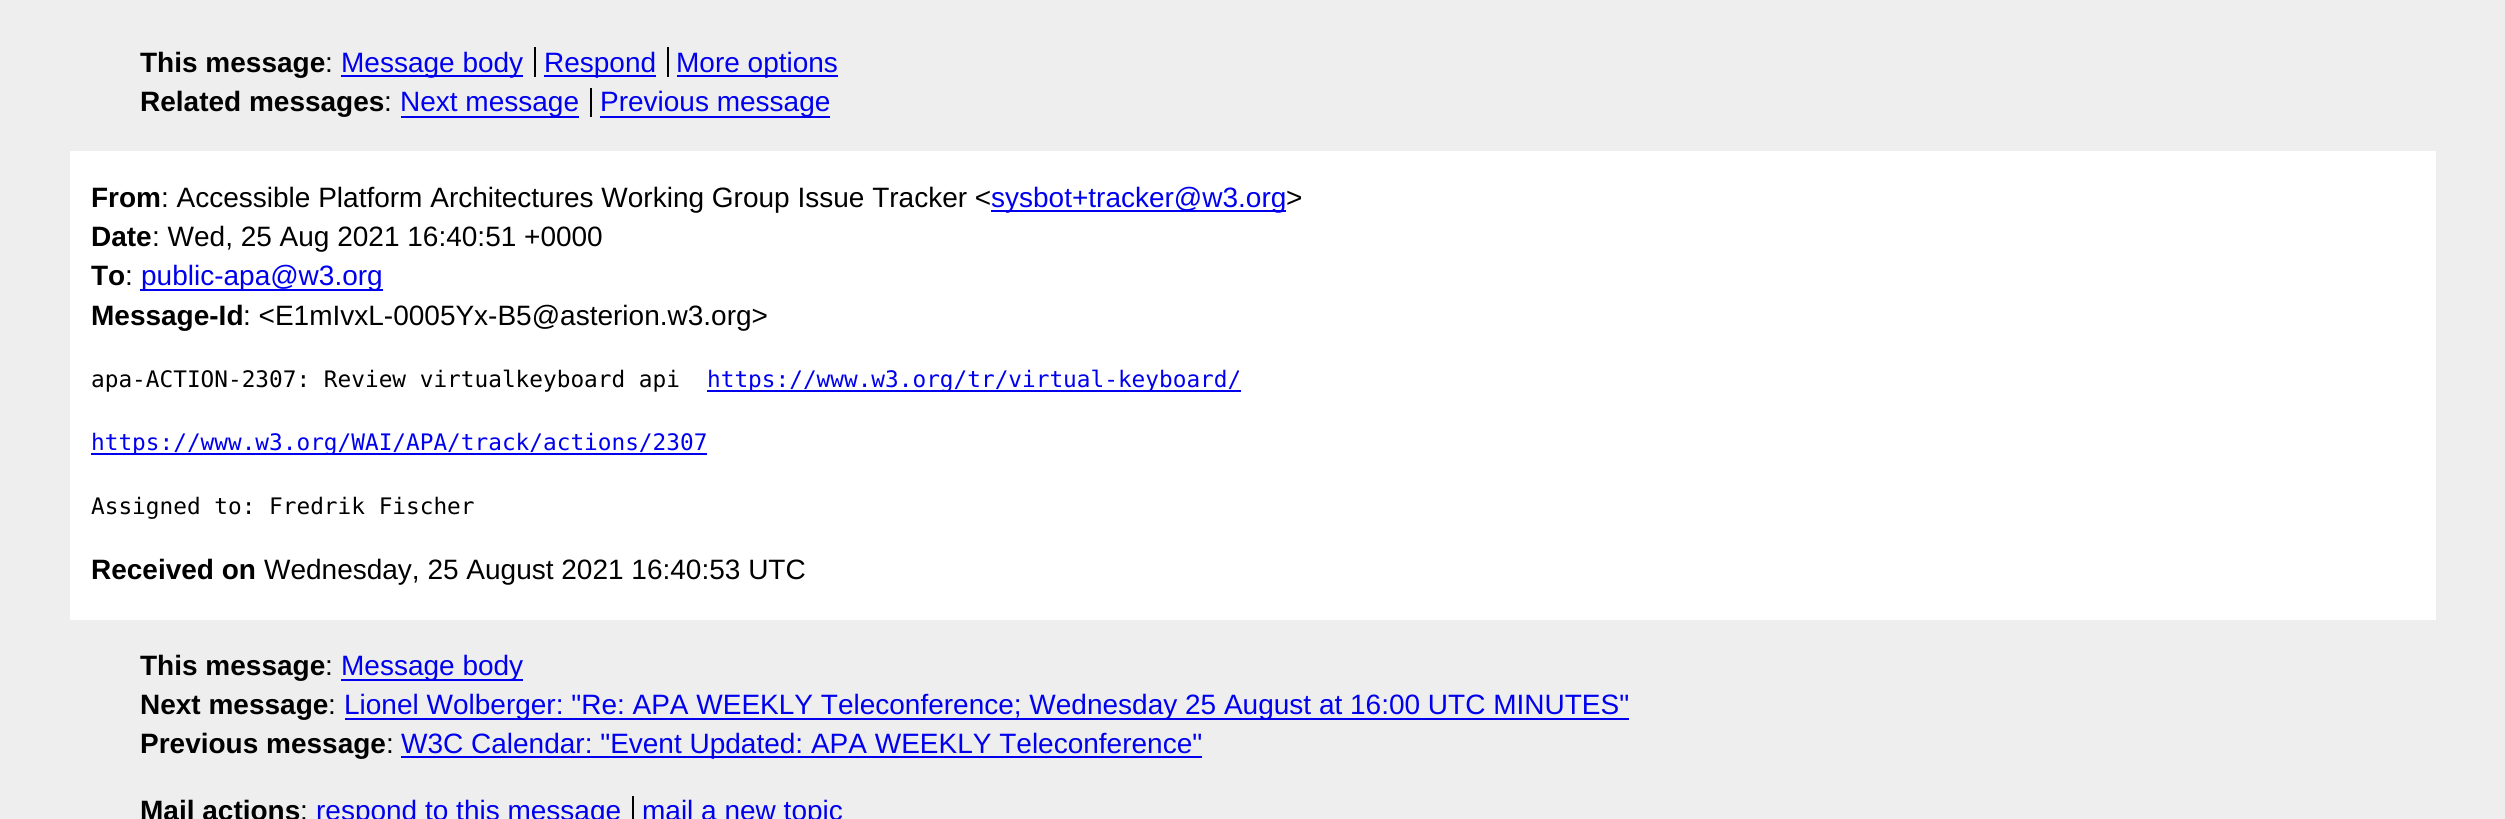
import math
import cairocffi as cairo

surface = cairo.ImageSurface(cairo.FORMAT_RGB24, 2505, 819)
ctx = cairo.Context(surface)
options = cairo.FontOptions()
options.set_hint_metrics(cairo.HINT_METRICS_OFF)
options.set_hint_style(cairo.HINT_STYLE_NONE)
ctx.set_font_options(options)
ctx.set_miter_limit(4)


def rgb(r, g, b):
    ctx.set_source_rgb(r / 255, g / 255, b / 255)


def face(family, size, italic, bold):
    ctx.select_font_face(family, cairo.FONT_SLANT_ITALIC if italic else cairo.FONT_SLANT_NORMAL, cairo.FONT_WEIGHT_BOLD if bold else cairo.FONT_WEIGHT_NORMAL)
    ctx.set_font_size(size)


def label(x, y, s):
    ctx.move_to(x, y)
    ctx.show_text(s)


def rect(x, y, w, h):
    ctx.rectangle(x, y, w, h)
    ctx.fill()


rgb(238, 238, 238)
ctx.paint()
face('Liberation Sans', 28, 0, 1)
rgb(0, 0, 0)
label(140, 72, 'This message')
face('Liberation Sans', 28, 0, 0)
label(325, 72, ':')
rgb(0, 0, 238)
rect(341, 75, 182, 2)
label(341, 72, 'Message body')
rect(544, 75, 112, 2)
label(544, 72, 'Respond')
rgb(0, 0, 0)
rect(534, 47, 2, 30)
rgb(0, 0, 238)
rect(677, 75, 161, 2)
label(676, 72, 'More options')
rgb(0, 0, 0)
rect(667, 47, 2, 30)
face('Liberation Sans', 28, 0, 1)
label(140, 111, 'Related messages')
face('Liberation Sans', 28, 0, 0)
label(384, 111, ':')
rgb(0, 0, 238)
rect(401, 116, 178, 2)
label(400, 111, 'Next message')
rect(600, 116, 230, 2)
label(600, 111, 'Previous message')
rgb(0, 0, 0)
rect(590, 88, 2, 29)
rgb(255, 255, 255)
rect(70, 151, 2366, 469)
face('Liberation Sans', 28, 0, 1)
rgb(0, 0, 0)
label(91, 207, 'From')
face('Liberation Sans', 28, 0, 0)
label(161, 207, ': Accessible Platform Architectures Working Group Issue Tracker <')
rgb(0, 0, 238)
rect(991, 210, 295, 2)
label(991, 207, 'sysbot+tracker@w3.org')
rgb(0, 0, 0)
label(1286, 207, '>')
face('Liberation Sans', 28, 0, 1)
label(91, 246, 'Date')
face('Liberation Sans', 28, 0, 0)
label(152, 246, ': Wed, 25 Aug 2021 16:40:51 +0000')
face('Liberation Sans', 28, 0, 1)
label(91, 285, 'To')
face('Liberation Sans', 28, 0, 0)
label(125, 285, ':')
rgb(0, 0, 238)
rect(140, 289, 243, 2)
label(141, 285, 'public-apa@w3.org')
face('Liberation Sans', 28, 0, 1)
rgb(0, 0, 0)
label(91, 325, 'Message-Id')
face('Liberation Sans', 28, 0, 0)
label(243, 325, ': <E1mIvxL-0005Yx-B5@asterion.w3.org>')
face('DejaVu Sans Mono', 22.75, 0, 0)
label(91, 387, 'apa-ACTION-2307: Review virtualkeyboard api')
rgb(0, 0, 238)
rect(707, 390, 534, 2)
label(707, 387, 'https://www.w3.org/tr/virtual-keyboard/')
rect(91, 453, 616, 2)
label(91, 450, 'https://www.w3.org/WAI/APA/track/actions/2307')
rgb(0, 0, 0)
label(91, 514, 'Assigned to: Fredrik Fischer')
face('Liberation Sans', 28, 0, 1)
label(91, 579, 'Received on')
face('Liberation Sans', 28, 0, 0)
label(264, 579, 'Wednesday, 25 August 2021 16:40:53 UTC')
face('Liberation Sans', 28, 0, 1)
label(140, 675, 'This message')
face('Liberation Sans', 28, 0, 0)
label(325, 675, ':')
rgb(0, 0, 238)
rect(341, 679, 182, 2)
label(341, 675, 'Message body')
face('Liberation Sans', 28, 0, 1)
rgb(0, 0, 0)
label(140, 714, 'Next message')
face('Liberation Sans', 28, 0, 0)
label(328, 714, ':')
rgb(0, 0, 238)
rect(345, 718, 1284, 2)
label(344, 714, 'Lionel Wolberger: "Re: APA WEEKLY Teleconference; Wednesday 25 August at 16:00 UTC MINUTES"')
face('Liberation Sans', 28, 0, 1)
rgb(0, 0, 0)
label(140, 753, 'Previous message')
face('Liberation Sans', 28, 0, 0)
label(386, 753, ':')
rgb(0, 0, 238)
rect(401, 756, 801, 2)
label(401, 753, 'W3C Calendar: "Event Updated: APA WEEKLY Teleconference"')
face('Liberation Sans', 28, 0, 1)
rgb(0, 0, 0)
label(140, 820, 'Mail actions')
face('Liberation Sans', 28, 0, 0)
label(300, 820, ':')
rgb(0, 0, 238)
label(316, 820, 'respond to this message')
label(642, 820, 'mail a new topic')
rgb(0, 0, 0)
rect(632, 796, 2, 23)
surface.write_to_png('render.png')
